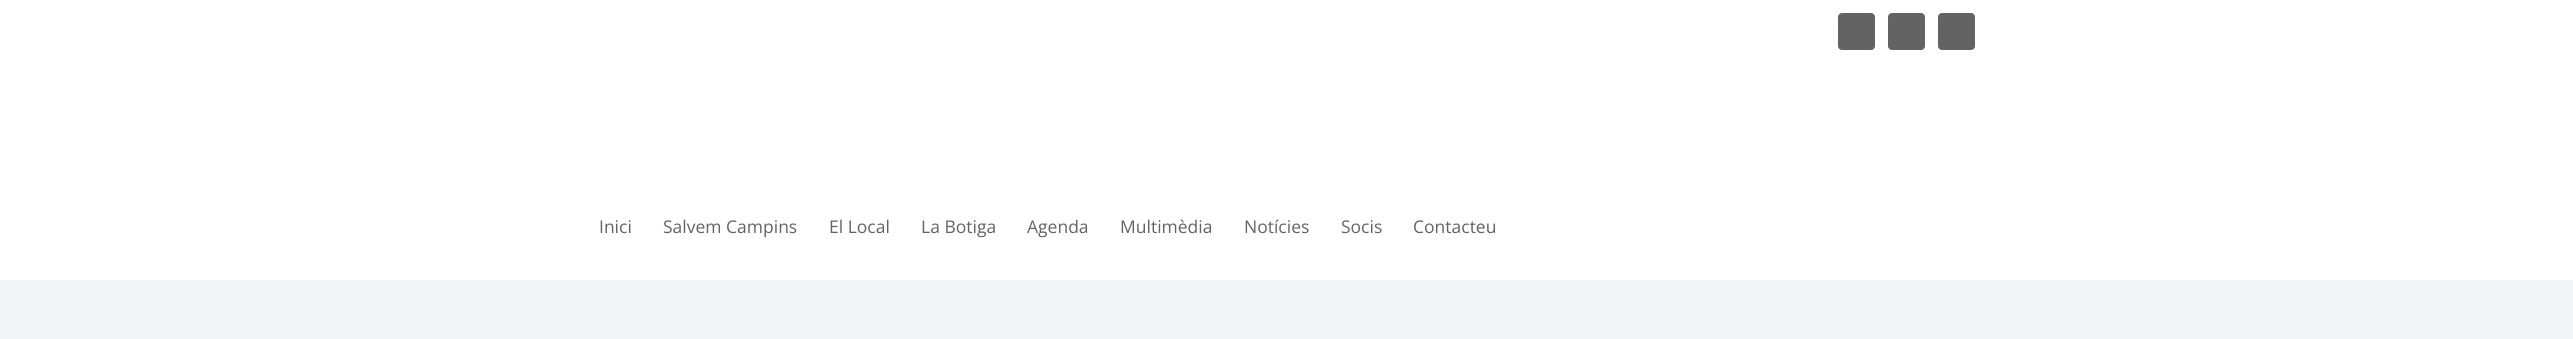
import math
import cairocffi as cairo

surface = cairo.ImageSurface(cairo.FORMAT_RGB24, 2573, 339)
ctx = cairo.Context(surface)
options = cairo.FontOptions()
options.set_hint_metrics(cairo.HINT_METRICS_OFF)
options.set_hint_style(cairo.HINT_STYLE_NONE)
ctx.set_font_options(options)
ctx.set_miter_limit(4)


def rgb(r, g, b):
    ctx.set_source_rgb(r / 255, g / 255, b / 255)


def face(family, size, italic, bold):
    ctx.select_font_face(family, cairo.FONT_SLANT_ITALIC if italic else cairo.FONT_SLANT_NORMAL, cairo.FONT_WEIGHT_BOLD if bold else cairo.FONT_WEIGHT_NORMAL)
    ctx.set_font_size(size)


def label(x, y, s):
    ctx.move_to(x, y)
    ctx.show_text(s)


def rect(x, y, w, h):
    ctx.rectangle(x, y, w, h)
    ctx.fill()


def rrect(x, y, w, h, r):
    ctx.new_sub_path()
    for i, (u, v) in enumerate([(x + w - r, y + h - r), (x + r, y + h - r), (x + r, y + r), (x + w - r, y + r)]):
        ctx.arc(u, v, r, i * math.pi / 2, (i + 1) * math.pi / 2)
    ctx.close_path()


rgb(255, 255, 255)
ctx.paint()
rgb(99, 99, 99)
rrect(1838.5, 13.5, 36, 36, 3.5)
ctx.fill_preserve()
ctx.set_line_width(1)
ctx.stroke()
rrect(1888.5, 13.5, 36, 36, 3.5)
ctx.fill_preserve()
ctx.stroke()
rrect(1938.5, 13.5, 36, 36, 3.5)
ctx.fill_preserve()
ctx.stroke()
face('Open Sans', 17.5, 0, 0)
label(599, 233, 'Inici')
label(663, 233, 'Salvem Campins')
label(829, 233, 'El Local')
label(921, 233, 'La Botiga')
label(1027, 233, 'Agenda')
label(1120, 233, 'Multimèdia')
label(1244, 233, 'Notícies')
label(1341, 233, 'Socis')
label(1413, 233, 'Contacteu')
rgb(242, 243, 245)
rect(0, 280, 2573, 59)
surface.write_to_png('render.png')
